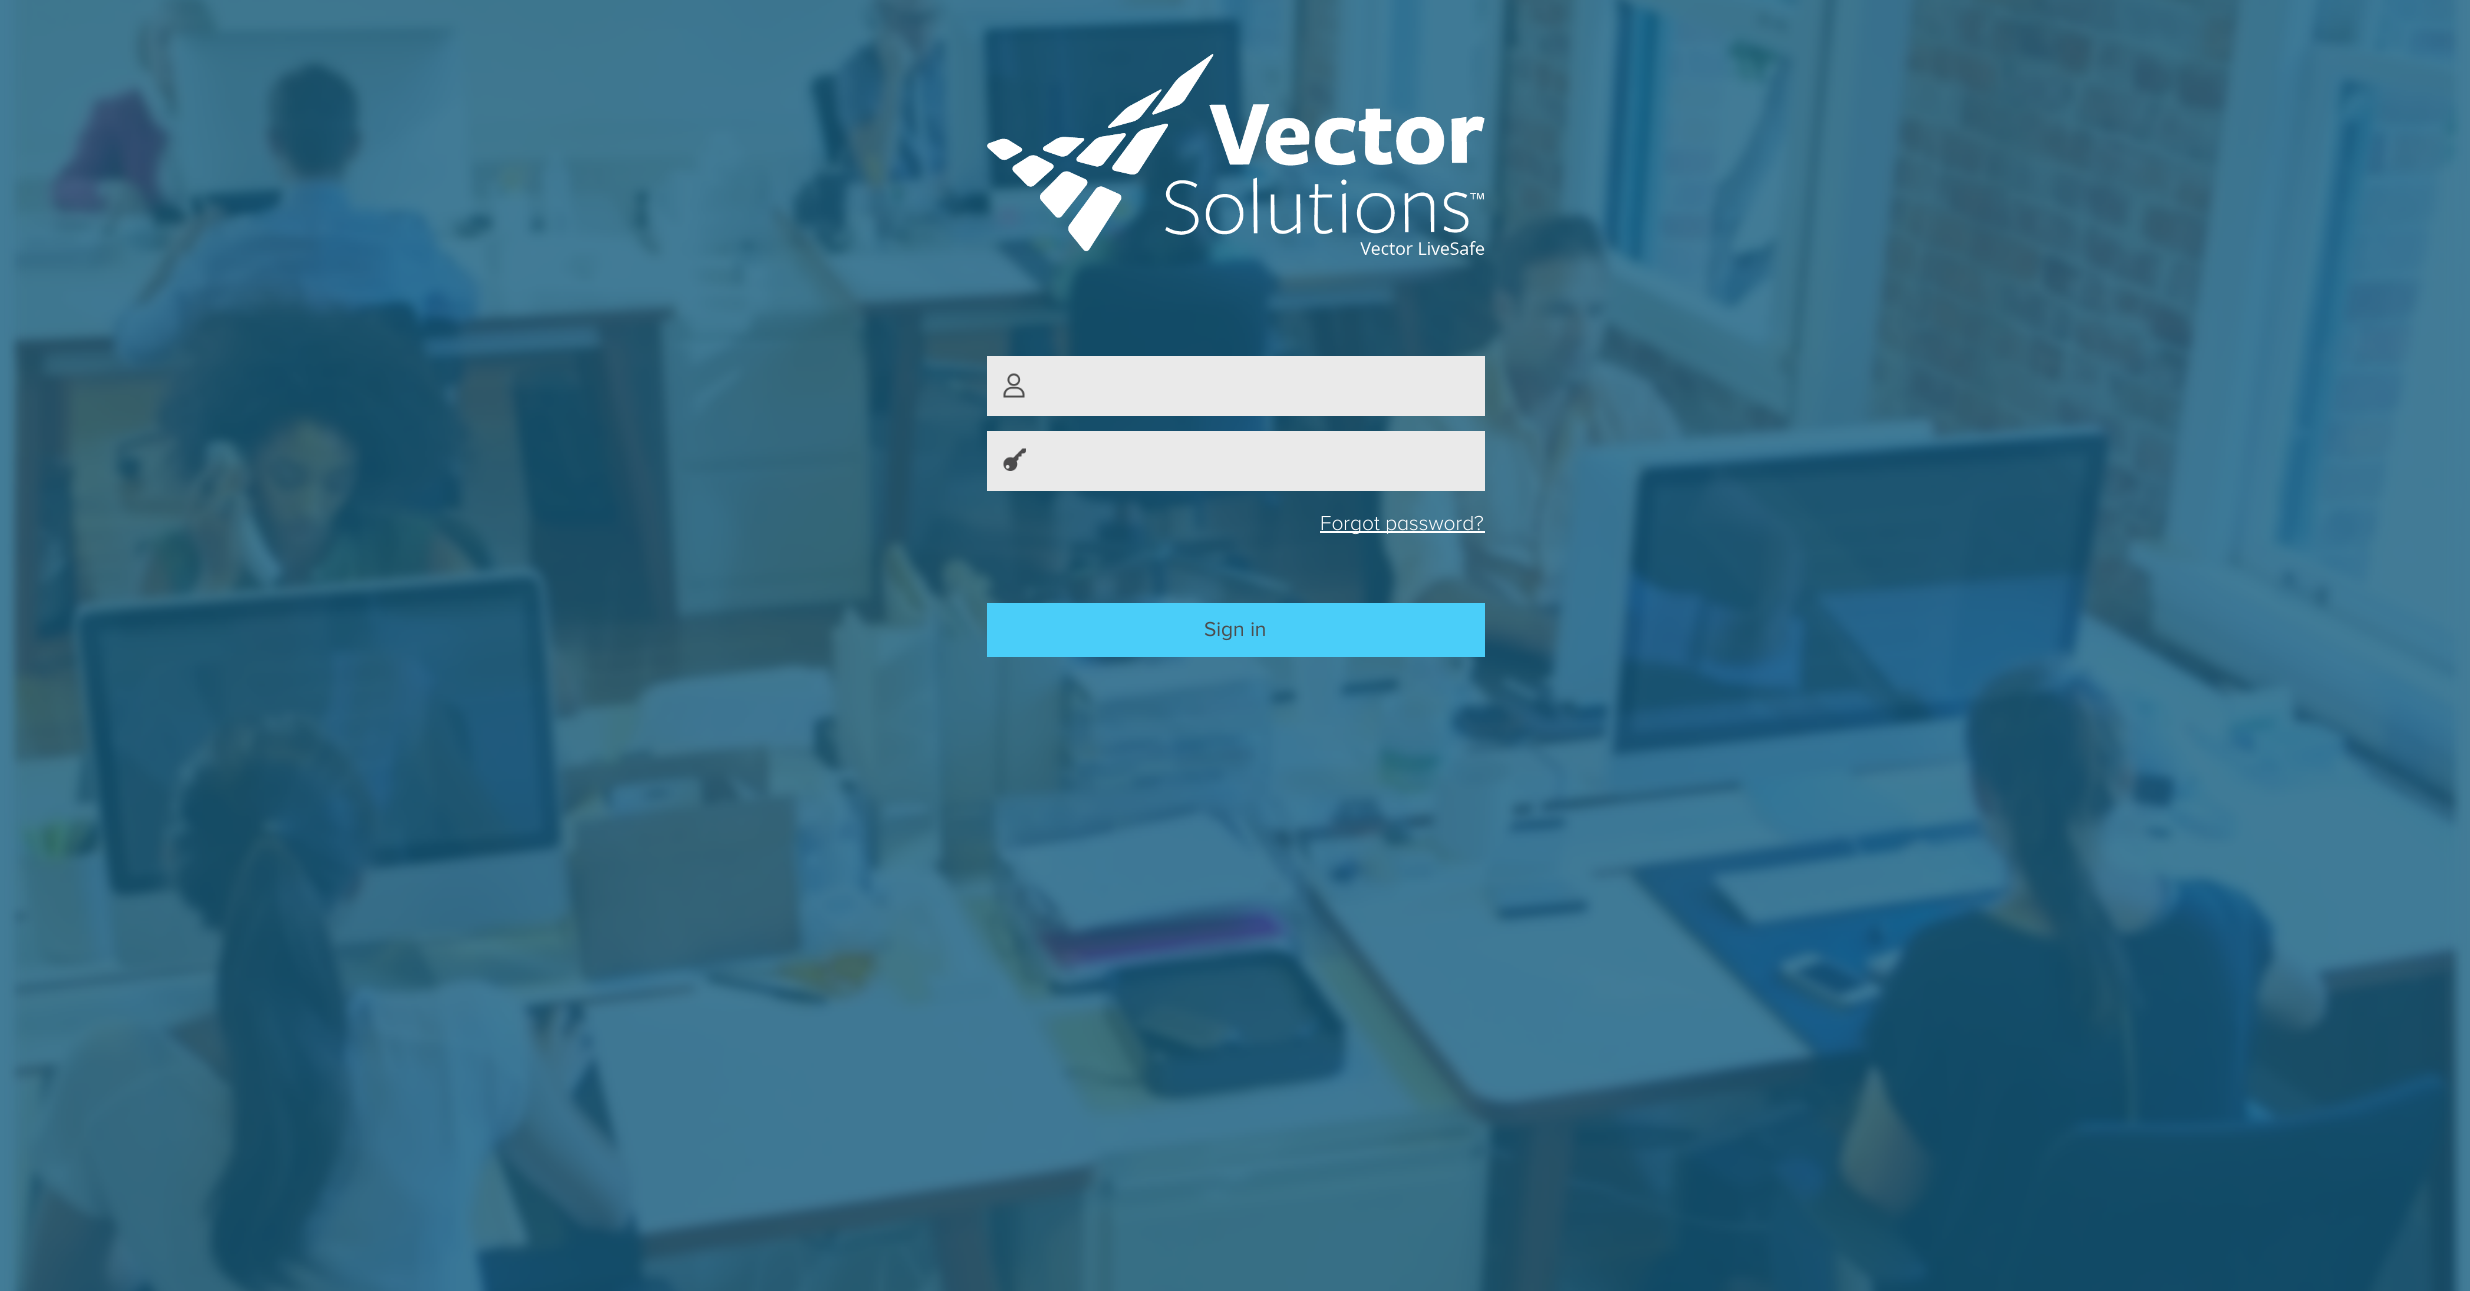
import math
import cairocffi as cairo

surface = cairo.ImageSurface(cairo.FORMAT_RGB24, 2470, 1291)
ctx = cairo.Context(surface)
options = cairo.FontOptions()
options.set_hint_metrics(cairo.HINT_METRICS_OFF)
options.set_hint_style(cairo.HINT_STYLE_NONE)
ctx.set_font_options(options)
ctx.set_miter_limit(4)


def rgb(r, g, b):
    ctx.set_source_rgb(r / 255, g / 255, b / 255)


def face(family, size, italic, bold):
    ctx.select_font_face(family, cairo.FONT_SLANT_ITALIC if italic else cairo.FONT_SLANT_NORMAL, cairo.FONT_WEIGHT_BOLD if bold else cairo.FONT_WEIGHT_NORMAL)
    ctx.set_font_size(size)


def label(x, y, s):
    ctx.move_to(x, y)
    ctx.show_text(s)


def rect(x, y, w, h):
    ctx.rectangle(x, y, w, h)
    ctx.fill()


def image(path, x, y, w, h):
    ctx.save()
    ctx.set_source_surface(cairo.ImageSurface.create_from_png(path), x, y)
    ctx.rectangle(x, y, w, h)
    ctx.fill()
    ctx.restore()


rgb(255, 255, 255)
ctx.paint()
image('image0.png', 0, 0, 2470, 1291)
image('image1.png', 987, 54, 498, 201)
rgb(234, 234, 234)
rect(987, 356, 498, 60)
image('image2.png', 1003, 373, 22, 25)
rect(987, 431, 498, 60)
image('image3.png', 1003, 448, 23, 23)
rgb(255, 255, 255)
rect(1320, 531, 165, 2)
face('Proxima Nova Light', 21, 0, 0)
label(1320, 530, 'Forgot password?')
rgb(74, 206, 249)
rect(987, 603, 498, 54)
face('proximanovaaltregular', 21, 0, 0)
rgb(77, 77, 77)
label(1204, 636, 'Sign in')
surface.write_to_png('render.png')
